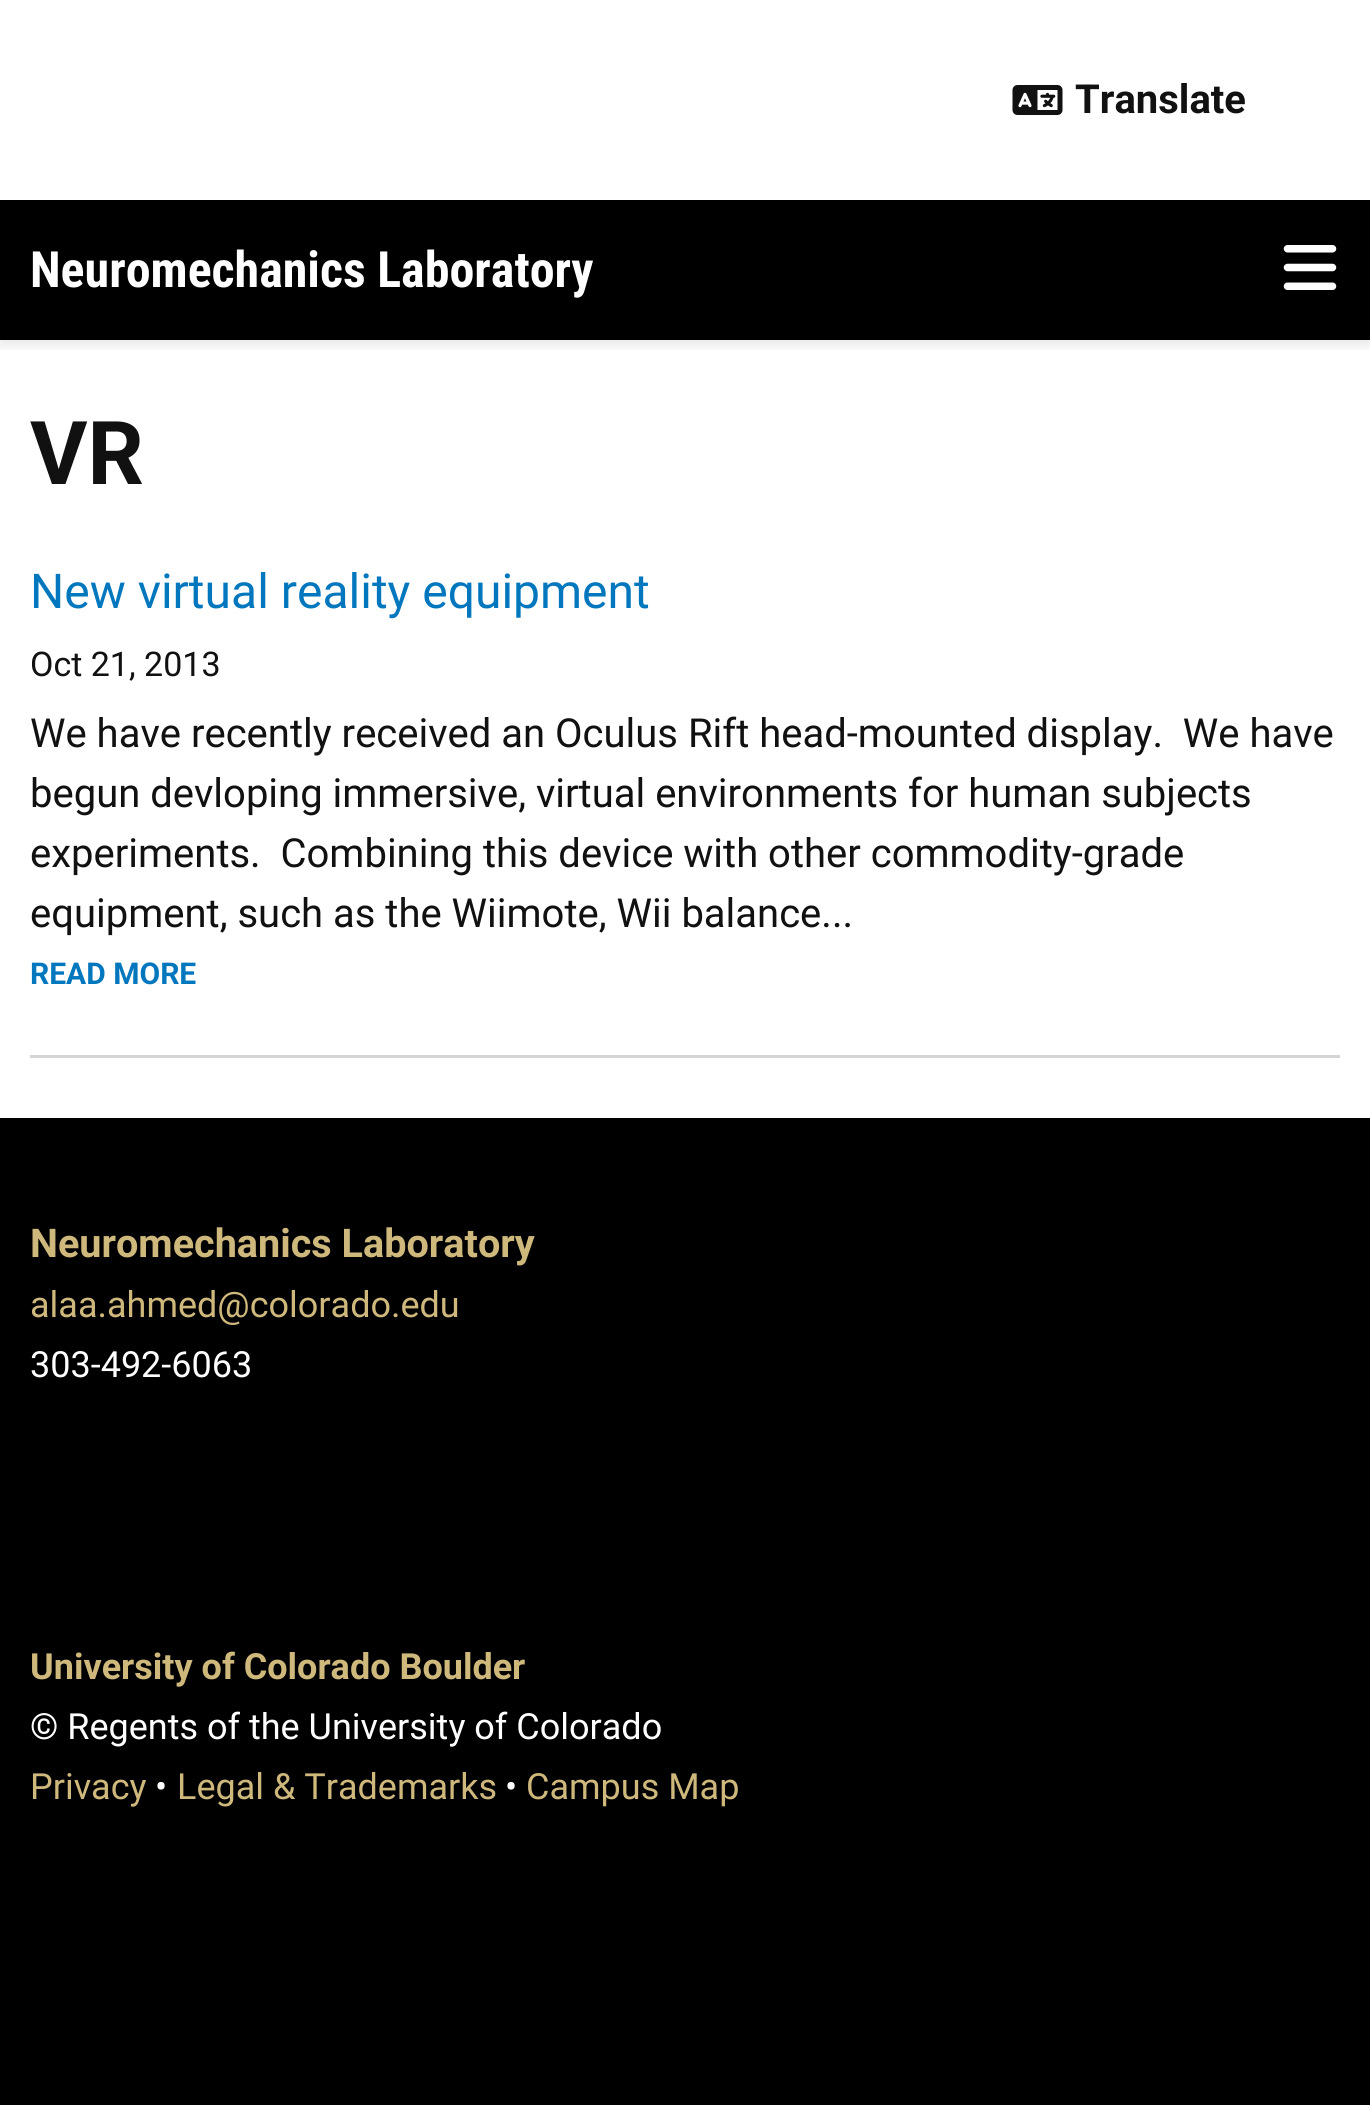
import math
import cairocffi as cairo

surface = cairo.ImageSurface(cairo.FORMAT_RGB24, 1370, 2105)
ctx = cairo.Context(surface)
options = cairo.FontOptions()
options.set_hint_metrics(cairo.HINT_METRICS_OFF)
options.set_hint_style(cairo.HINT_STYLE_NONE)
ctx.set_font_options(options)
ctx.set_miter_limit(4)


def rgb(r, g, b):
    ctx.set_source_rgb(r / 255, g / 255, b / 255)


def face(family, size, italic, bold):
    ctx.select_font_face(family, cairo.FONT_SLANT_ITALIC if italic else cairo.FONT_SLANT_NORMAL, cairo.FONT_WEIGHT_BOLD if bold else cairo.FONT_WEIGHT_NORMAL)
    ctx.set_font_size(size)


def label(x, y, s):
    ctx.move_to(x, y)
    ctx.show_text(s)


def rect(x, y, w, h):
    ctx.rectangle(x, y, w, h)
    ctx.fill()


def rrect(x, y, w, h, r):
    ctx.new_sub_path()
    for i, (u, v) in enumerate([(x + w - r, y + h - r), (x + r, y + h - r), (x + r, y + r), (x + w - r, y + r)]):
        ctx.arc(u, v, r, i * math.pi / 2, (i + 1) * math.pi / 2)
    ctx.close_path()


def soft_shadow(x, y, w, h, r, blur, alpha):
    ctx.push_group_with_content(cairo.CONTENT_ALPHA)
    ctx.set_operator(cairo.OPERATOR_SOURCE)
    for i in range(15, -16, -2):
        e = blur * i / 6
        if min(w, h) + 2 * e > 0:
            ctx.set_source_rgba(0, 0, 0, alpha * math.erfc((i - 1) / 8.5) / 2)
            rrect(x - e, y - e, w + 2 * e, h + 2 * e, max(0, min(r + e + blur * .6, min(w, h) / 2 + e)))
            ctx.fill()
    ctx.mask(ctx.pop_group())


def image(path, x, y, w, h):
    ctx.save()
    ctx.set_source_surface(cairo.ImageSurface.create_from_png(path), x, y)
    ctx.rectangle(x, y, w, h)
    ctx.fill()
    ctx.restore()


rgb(255, 255, 255)
ctx.paint()
ctx.save()
ctx.rectangle(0, 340, 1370, 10)
ctx.clip()
rgb(0, 0, 0)
soft_shadow(0, 5, 1370, 340, 0, 6, 0.1)
ctx.restore()
image('image0.png', 1012, 85, 51, 30)
face('Roboto', 40, 0, 1)
rgb(17, 17, 17)
label(1075, 113, 'Translate')
rgb(0, 0, 0)
rect(0, 200, 1370, 140)
face('Roboto Condensed', 50, 0, 1)
rgb(255, 255, 255)
label(30, 287, 'Neuromechanics Laboratory')
image('image1.png', 1283, 245, 54, 45)
face('Roboto', 88, 0, 1)
rgb(17, 17, 17)
label(30, 484, 'VR')
rgb(213, 213, 213)
rect(30, 1055, 1310, 3)
face('Roboto', 48, 0, 0)
rgb(2, 119, 189)
label(30, 608, 'New virtual reality equipment')
face('Roboto', 34, 0, 0)
rgb(17, 17, 17)
label(30, 676, 'Oct 21, 2013')
face('Roboto', 40, 0, 0)
label(30, 747, 'We have recently received an Oculus Rift head-mounted display.  We have')
label(30, 807, 'begun devloping immersive, virtual environments for human subjects')
label(30, 867, 'experiments.  Combining this device with other commodity-grade')
label(30, 927, 'equipment, such as the Wiimote, Wii balance...')
face('Roboto', 30, 0, 1)
rgb(2, 119, 189)
label(30, 984, 'READ MORE')
rgb(0, 0, 0)
rect(0, 1118, 1370, 987)
face('Roboto', 39.6, 0, 1)
rgb(207, 184, 124)
label(30, 1257, 'Neuromechanics Laboratory')
face('Roboto', 36, 0, 0)
label(30, 1317, 'alaa.ahmed@colorado.edu')
rgb(255, 255, 255)
label(30, 1377, '303-492-6063')
face('Roboto', 36, 0, 1)
rgb(207, 184, 124)
label(30, 1679, 'University of Colorado Boulder')
face('Roboto', 36, 0, 0)
rgb(255, 255, 255)
label(30, 1739, '© Regents of the University of Colorado')
rgb(207, 184, 124)
label(30, 1799, 'Privacy')
rgb(255, 255, 255)
label(155, 1799, '•')
rgb(207, 184, 124)
label(177, 1799, 'Legal & Trademarks')
rgb(255, 255, 255)
label(505, 1799, '•')
rgb(207, 184, 124)
label(526, 1799, 'Campus Map')
surface.write_to_png('render.png')
